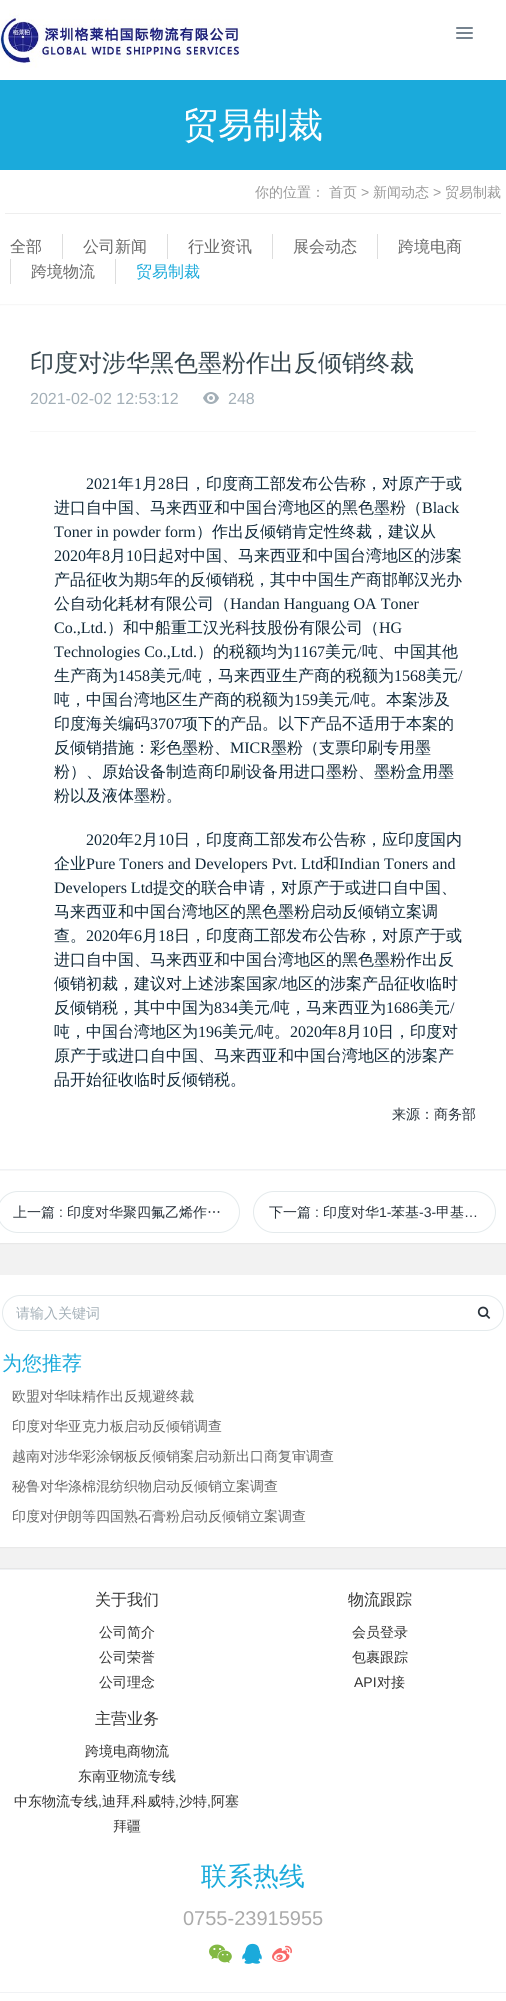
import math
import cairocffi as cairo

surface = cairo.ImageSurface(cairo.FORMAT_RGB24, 506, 2001)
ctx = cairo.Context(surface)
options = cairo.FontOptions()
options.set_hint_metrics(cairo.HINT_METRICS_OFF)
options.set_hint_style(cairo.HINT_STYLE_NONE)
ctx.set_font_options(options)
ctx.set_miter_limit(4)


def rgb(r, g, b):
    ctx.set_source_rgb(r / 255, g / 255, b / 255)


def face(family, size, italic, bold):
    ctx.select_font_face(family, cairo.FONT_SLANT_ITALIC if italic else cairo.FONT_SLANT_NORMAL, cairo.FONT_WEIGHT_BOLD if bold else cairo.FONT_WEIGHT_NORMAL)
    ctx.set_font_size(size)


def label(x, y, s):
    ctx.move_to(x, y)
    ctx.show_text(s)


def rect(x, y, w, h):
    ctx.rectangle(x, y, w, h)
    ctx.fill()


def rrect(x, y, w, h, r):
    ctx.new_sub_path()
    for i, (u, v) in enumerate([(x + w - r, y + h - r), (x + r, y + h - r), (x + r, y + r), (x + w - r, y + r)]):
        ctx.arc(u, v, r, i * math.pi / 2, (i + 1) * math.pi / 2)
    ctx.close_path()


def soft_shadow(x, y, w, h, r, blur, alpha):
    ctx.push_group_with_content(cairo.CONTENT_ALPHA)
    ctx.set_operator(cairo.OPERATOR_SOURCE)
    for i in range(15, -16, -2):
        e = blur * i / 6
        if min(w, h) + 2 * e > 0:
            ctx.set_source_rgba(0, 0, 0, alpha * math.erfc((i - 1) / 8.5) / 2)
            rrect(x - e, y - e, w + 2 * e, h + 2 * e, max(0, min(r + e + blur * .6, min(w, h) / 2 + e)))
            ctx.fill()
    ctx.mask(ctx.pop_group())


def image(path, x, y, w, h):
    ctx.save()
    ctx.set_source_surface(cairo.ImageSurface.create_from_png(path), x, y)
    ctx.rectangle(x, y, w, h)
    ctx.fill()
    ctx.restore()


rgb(255, 255, 255)
ctx.paint()
image('image0.png', 0, 10, 240, 58)
rgb(118, 131, 143)
rrect(456, 27, 17, 2, 1)
ctx.fill()
rrect(456, 32, 17, 2, 1)
ctx.fill()
rrect(456, 37, 17, 2, 1)
ctx.fill()
rgb(27, 170, 219)
rect(0, 80, 506, 90)
face('WenQuanYi Zen Hei Medium', 35, 0, 0)
rgb(255, 255, 255)
label(183, 137, '贸易制裁')
rgb(238, 238, 238)
rect(5, 213, 496, 1)
face('WenQuanYi Zen Hei Medium', 14, 0, 0)
rgb(153, 153, 153)
label(255, 197, '你的位置：')
label(329, 197, '首页')
face('Liberation Sans', 14, 0, 0)
label(361, 197, '>')
face('WenQuanYi Zen Hei Medium', 14, 0, 0)
label(373, 197, '新闻动态')
face('Liberation Sans', 14, 0, 0)
label(433, 197, '>')
face('WenQuanYi Zen Hei Medium', 14, 0, 0)
label(445, 197, '贸易制裁')
face('WenQuanYi Zen Hei Medium', 16, 0, 0)
rgb(102, 102, 102)
label(10, 252, '全部')
rgb(221, 221, 221)
rect(62, 234, 1, 25)
rgb(102, 102, 102)
label(83, 252, '公司新闻')
rgb(221, 221, 221)
rect(167, 234, 1, 25)
rgb(102, 102, 102)
label(188, 252, '行业资讯')
rgb(221, 221, 221)
rect(272, 234, 1, 25)
rgb(102, 102, 102)
label(293, 252, '展会动态')
rgb(221, 221, 221)
rect(377, 234, 1, 25)
rgb(102, 102, 102)
label(398, 252, '跨境电商')
rgb(221, 221, 221)
rect(10, 259, 1, 25)
rgb(102, 102, 102)
label(31, 277, '跨境物流')
rgb(221, 221, 221)
rect(115, 259, 1, 25)
rgb(27, 170, 219)
label(136, 277, '贸易制裁')
rgb(242, 242, 242)
rect(0, 1243, 506, 325)
rgb(247, 247, 247)
rect(0, 304, 506, 1)
rgb(0, 0, 0)
soft_shadow(0, 306, 506, 938, 0, 0.5, 0.05)
rgb(255, 255, 255)
rect(0, 306, 506, 937)
face('WenQuanYi Zen Hei Medium', 24, 0, 0)
rgb(55, 71, 79)
label(30, 371, '印度对涉华黑色墨粉作出反倾销终裁')
rgb(247, 247, 247)
rect(30, 431, 446, 1)
face('Liberation Sans', 16, 0, 0)
rgb(163, 175, 183)
label(30, 404, '2021-02-02 12:53:12')
image('image1.png', 203, 392, 16, 12)
label(228, 404, '248')
face('Liberation Serif', 16, 0, 0)
rgb(16, 40, 56)
label(86, 489, '2021')
face('WenQuanYi Zen Hei Medium', 16, 0, 0)
label(118, 489, '年')
face('Liberation Serif', 16, 0, 0)
label(134, 489, '1')
face('WenQuanYi Zen Hei Medium', 16, 0, 0)
label(142, 489, '月')
face('Liberation Serif', 16, 0, 0)
label(158, 489, '28')
face('WenQuanYi Zen Hei Medium', 16, 0, 0)
label(174, 489, '日，印度商工部发布公告称，对原产于或')
label(54, 513, '进口自中国、马来西亚和中国台湾地区的黑色墨粉（')
face('Liberation Serif', 16, 0, 0)
label(422, 513, 'Black')
label(54, 537, 'Toner in powder form')
face('WenQuanYi Zen Hei Medium', 16, 0, 0)
label(196, 537, '）作出反倾销肯定性终裁，建议从')
face('Liberation Serif', 16, 0, 0)
label(54, 561, '2020')
face('WenQuanYi Zen Hei Medium', 16, 0, 0)
label(86, 561, '年')
face('Liberation Serif', 16, 0, 0)
label(102, 561, '8')
face('WenQuanYi Zen Hei Medium', 16, 0, 0)
label(110, 561, '月')
face('Liberation Serif', 16, 0, 0)
label(126, 561, '10')
face('WenQuanYi Zen Hei Medium', 16, 0, 0)
label(142, 561, '日起对中国、马来西亚和中国台湾地区的涉案')
label(54, 585, '产品征收为期')
face('Liberation Serif', 16, 0, 0)
label(150, 585, '5')
face('WenQuanYi Zen Hei Medium', 16, 0, 0)
label(158, 585, '年的反倾销税，其中中国生产商邯郸汉光办')
label(54, 609, '公自动化耗材有限公司（')
face('Liberation Serif', 16, 0, 0)
label(230, 609, 'Handan Hanguang OA Toner')
label(54, 633, 'Co.,Ltd.')
face('WenQuanYi Zen Hei Medium', 16, 0, 0)
label(107, 633, '）和中船重工汉光科技股份有限公司（')
face('Liberation Serif', 16, 0, 0)
label(379, 633, 'HG')
label(54, 657, 'Technologies Co.,Ltd.')
face('WenQuanYi Zen Hei Medium', 16, 0, 0)
label(197, 657, '）的税额均为')
face('Liberation Serif', 16, 0, 0)
label(293, 657, '1167')
face('WenQuanYi Zen Hei Medium', 16, 0, 0)
label(325, 657, '美元')
face('Liberation Serif', 16, 0, 0)
label(357, 657, '/')
face('WenQuanYi Zen Hei Medium', 16, 0, 0)
label(362, 657, '吨、中国其他')
label(54, 681, '生产商为')
face('Liberation Serif', 16, 0, 0)
label(118, 681, '1458')
face('WenQuanYi Zen Hei Medium', 16, 0, 0)
label(150, 681, '美元')
face('Liberation Serif', 16, 0, 0)
label(182, 681, '/')
face('WenQuanYi Zen Hei Medium', 16, 0, 0)
label(186, 681, '吨，马来西亚生产商的税额为')
face('Liberation Serif', 16, 0, 0)
label(394, 681, '1568')
face('WenQuanYi Zen Hei Medium', 16, 0, 0)
label(426, 681, '美元')
face('Liberation Serif', 16, 0, 0)
label(458, 681, '/')
face('WenQuanYi Zen Hei Medium', 16, 0, 0)
label(54, 705, '吨，中国台湾地区生产商的税额为')
face('Liberation Serif', 16, 0, 0)
label(294, 705, '159')
face('WenQuanYi Zen Hei Medium', 16, 0, 0)
label(318, 705, '美元')
face('Liberation Serif', 16, 0, 0)
label(350, 705, '/')
face('WenQuanYi Zen Hei Medium', 16, 0, 0)
label(354, 705, '吨。本案涉及')
label(54, 729, '印度海关编码')
face('Liberation Serif', 16, 0, 0)
label(150, 729, '3707')
face('WenQuanYi Zen Hei Medium', 16, 0, 0)
label(182, 729, '项下的产品。以下产品不适用于本案的')
label(54, 753, '反倾销措施：彩色墨粉、')
face('Liberation Serif', 16, 0, 0)
label(230, 753, 'MICR')
face('WenQuanYi Zen Hei Medium', 16, 0, 0)
label(271, 753, '墨粉（支票印刷专用墨')
label(54, 777, '粉）、原始设备制造商印刷设备用进口墨粉、墨粉盒用墨')
label(54, 801, '粉以及液体墨粉。')
face('Liberation Serif', 16, 0, 0)
label(86, 845, '2020')
face('WenQuanYi Zen Hei Medium', 16, 0, 0)
label(118, 845, '年')
face('Liberation Serif', 16, 0, 0)
label(134, 845, '2')
face('WenQuanYi Zen Hei Medium', 16, 0, 0)
label(142, 845, '月')
face('Liberation Serif', 16, 0, 0)
label(158, 845, '10')
face('WenQuanYi Zen Hei Medium', 16, 0, 0)
label(174, 845, '日，印度商工部发布公告称，应印度国内')
label(54, 869, '企业')
face('Liberation Serif', 16, 0, 0)
label(86, 869, 'Pure Toners and Developers Pvt. Ltd')
face('WenQuanYi Zen Hei Medium', 16, 0, 0)
label(323, 869, '和')
face('Liberation Serif', 16, 0, 0)
label(339, 869, 'Indian Toners and')
label(54, 893, 'Developers Ltd')
face('WenQuanYi Zen Hei Medium', 16, 0, 0)
label(153, 893, '提交的联合申请，对原产于或进口自中国、')
label(54, 917, '马来西亚和中国台湾地区的黑色墨粉启动反倾销立案调')
label(54, 941, '查。')
face('Liberation Serif', 16, 0, 0)
label(86, 941, '2020')
face('WenQuanYi Zen Hei Medium', 16, 0, 0)
label(118, 941, '年')
face('Liberation Serif', 16, 0, 0)
label(134, 941, '6')
face('WenQuanYi Zen Hei Medium', 16, 0, 0)
label(142, 941, '月')
face('Liberation Serif', 16, 0, 0)
label(158, 941, '18')
face('WenQuanYi Zen Hei Medium', 16, 0, 0)
label(174, 941, '日，印度商工部发布公告称，对原产于或')
label(54, 965, '进口自中国、马来西亚和中国台湾地区的黑色墨粉作出反')
label(54, 989, '倾销初裁，建议对上述涉案国家')
face('Liberation Serif', 16, 0, 0)
label(278, 989, '/')
face('WenQuanYi Zen Hei Medium', 16, 0, 0)
label(282, 989, '地区的涉案产品征收临时')
label(54, 1013, '反倾销税，其中中国为')
face('Liberation Serif', 16, 0, 0)
label(214, 1013, '834')
face('WenQuanYi Zen Hei Medium', 16, 0, 0)
label(238, 1013, '美元')
face('Liberation Serif', 16, 0, 0)
label(270, 1013, '/')
face('WenQuanYi Zen Hei Medium', 16, 0, 0)
label(274, 1013, '吨，马来西亚为')
face('Liberation Serif', 16, 0, 0)
label(386, 1013, '1686')
face('WenQuanYi Zen Hei Medium', 16, 0, 0)
label(418, 1013, '美元')
face('Liberation Serif', 16, 0, 0)
label(450, 1013, '/')
face('WenQuanYi Zen Hei Medium', 16, 0, 0)
label(54, 1037, '吨，中国台湾地区为')
face('Liberation Serif', 16, 0, 0)
label(198, 1037, '196')
face('WenQuanYi Zen Hei Medium', 16, 0, 0)
label(222, 1037, '美元')
face('Liberation Serif', 16, 0, 0)
label(254, 1037, '/')
face('WenQuanYi Zen Hei Medium', 16, 0, 0)
label(258, 1037, '吨。')
face('Liberation Serif', 16, 0, 0)
label(290, 1037, '2020')
face('WenQuanYi Zen Hei Medium', 16, 0, 0)
label(322, 1037, '年')
face('Liberation Serif', 16, 0, 0)
label(338, 1037, '8')
face('WenQuanYi Zen Hei Medium', 16, 0, 0)
label(346, 1037, '月')
face('Liberation Serif', 16, 0, 0)
label(362, 1037, '10')
face('WenQuanYi Zen Hei Medium', 16, 0, 0)
label(378, 1037, '日，印度对')
label(54, 1061, '原产于或进口自中国、马来西亚和中国台湾地区的涉案产')
label(54, 1085, '品开始征收临时反倾销税。')
face('WenQuanYi Zen Hei Medium', 14, 0, 0)
rgb(42, 51, 60)
label(392, 1119, '来源：商务部')
rgb(240, 242, 245)
rect(0, 1169, 506, 1)
rgb(247, 247, 247)
rect(0, 1170, 506, 1)
rrect(-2.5, 1191.5, 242, 41, 20.5)
rgb(228, 234, 236)
ctx.set_line_width(1)
ctx.stroke()
rgb(42, 51, 60)
label(13, 1217, '上一篇')
face('Liberation Sans', 14, 0, 0)
label(59, 1217, ':')
face('WenQuanYi Zen Hei Medium', 14, 0, 0)
label(67, 1217, '印度对华聚四氟乙烯作…')
rrect(253.5, 1191.5, 242, 41, 20.5)
rgb(228, 234, 236)
ctx.stroke()
rgb(42, 51, 60)
label(269, 1217, '下一篇')
face('Liberation Sans', 14, 0, 0)
label(315, 1217, ':')
face('WenQuanYi Zen Hei Medium', 14, 0, 0)
label(323, 1217, '印度对华')
face('Liberation Sans', 14, 0, 0)
label(379, 1217, '1-')
face('WenQuanYi Zen Hei Medium', 14, 0, 0)
label(391, 1217, '苯基')
face('Liberation Sans', 14, 0, 0)
label(419, 1217, '-3-')
face('WenQuanYi Zen Hei Medium', 14, 0, 0)
label(436, 1217, '甲基')
face('Liberation Sans', 14, 0, 0)
label(464, 1217, '…')
rgb(0, 0, 0)
soft_shadow(-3, 1276, 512, 272, 1, 0.5, 0.05)
rgb(255, 255, 255)
rect(0, 1275, 506, 272)
rrect(2.5, 1295.5, 501, 35, 17.5)
rgb(228, 234, 236)
ctx.stroke()
face('WenQuanYi Zen Hei Medium', 14, 0, 0)
rgb(163, 175, 183)
label(16, 1318, '请输入关键词')
image('image2.png', 477, 1306, 14, 13)
face('WenQuanYi Zen Hei Medium', 20, 0, 0)
rgb(27, 170, 219)
label(2, 1370, '为您推荐')
face('WenQuanYi Zen Hei Medium', 14, 0, 0)
rgb(102, 102, 102)
label(12, 1401, '欧盟对华味精作出反规避终裁')
label(12, 1431, '印度对华亚克力板启动反倾销调查')
label(12, 1461, '越南对涉华彩涂钢板反倾销案启动新出口商复审调查')
label(12, 1491, '秘鲁对华涤棉混纺织物启动反倾销立案调查')
label(12, 1521, '印度对伊朗等四国熟石膏粉启动反倾销立案调查')
rgb(230, 230, 230)
rect(0, 1568, 506, 1)
rgb(240, 242, 245)
rect(0, 1569, 506, 1)
face('WenQuanYi Zen Hei Medium', 16, 0, 0)
rgb(51, 51, 51)
label(95, 1605, '关于我们')
face('WenQuanYi Zen Hei Medium', 14, 0, 0)
label(99, 1637, '公司简介')
label(99, 1662, '公司荣誉')
label(99, 1687, '公司理念')
face('WenQuanYi Zen Hei Medium', 16, 0, 0)
label(348, 1605, '物流跟踪')
face('WenQuanYi Zen Hei Medium', 14, 0, 0)
label(352, 1637, '会员登录')
label(352, 1662, '包裹跟踪')
face('Liberation Sans', 14, 0, 0)
label(354, 1687, 'API')
face('WenQuanYi Zen Hei Medium', 14, 0, 0)
label(377, 1687, '对接')
face('WenQuanYi Zen Hei Medium', 16, 0, 0)
label(95, 1724, '主营业务')
face('WenQuanYi Zen Hei Medium', 14, 0, 0)
label(85, 1756, '跨境电商物流')
label(78, 1781, '东南亚物流专线')
label(14, 1806, '中东物流专线')
face('Liberation Sans', 14, 0, 0)
label(98, 1806, ',')
face('WenQuanYi Zen Hei Medium', 14, 0, 0)
label(102, 1806, '迪拜')
face('Liberation Sans', 14, 0, 0)
label(130, 1806, ',')
face('WenQuanYi Zen Hei Medium', 14, 0, 0)
label(133, 1806, '科威特')
face('Liberation Sans', 14, 0, 0)
label(175, 1806, ',')
face('WenQuanYi Zen Hei Medium', 14, 0, 0)
label(179, 1806, '沙特')
face('Liberation Sans', 14, 0, 0)
label(207, 1806, ',')
face('WenQuanYi Zen Hei Medium', 14, 0, 0)
label(211, 1806, '阿塞')
label(113, 1831, '拜疆')
face('WenQuanYi Zen Hei Medium', 26, 0, 0)
rgb(27, 170, 219)
label(201, 1885, '联系热线')
face('Liberation Sans', 20, 0, 0)
rgb(170, 170, 170)
label(183, 1925, '0755-23915955')
image('image3.png', 209, 1944, 23, 19)
image('image4.png', 242, 1943, 20, 21)
image('image5.png', 272, 1945, 20, 17)
rgb(240, 242, 245)
rect(0, 1992, 506, 1)
surface.write_to_png('render.png')
